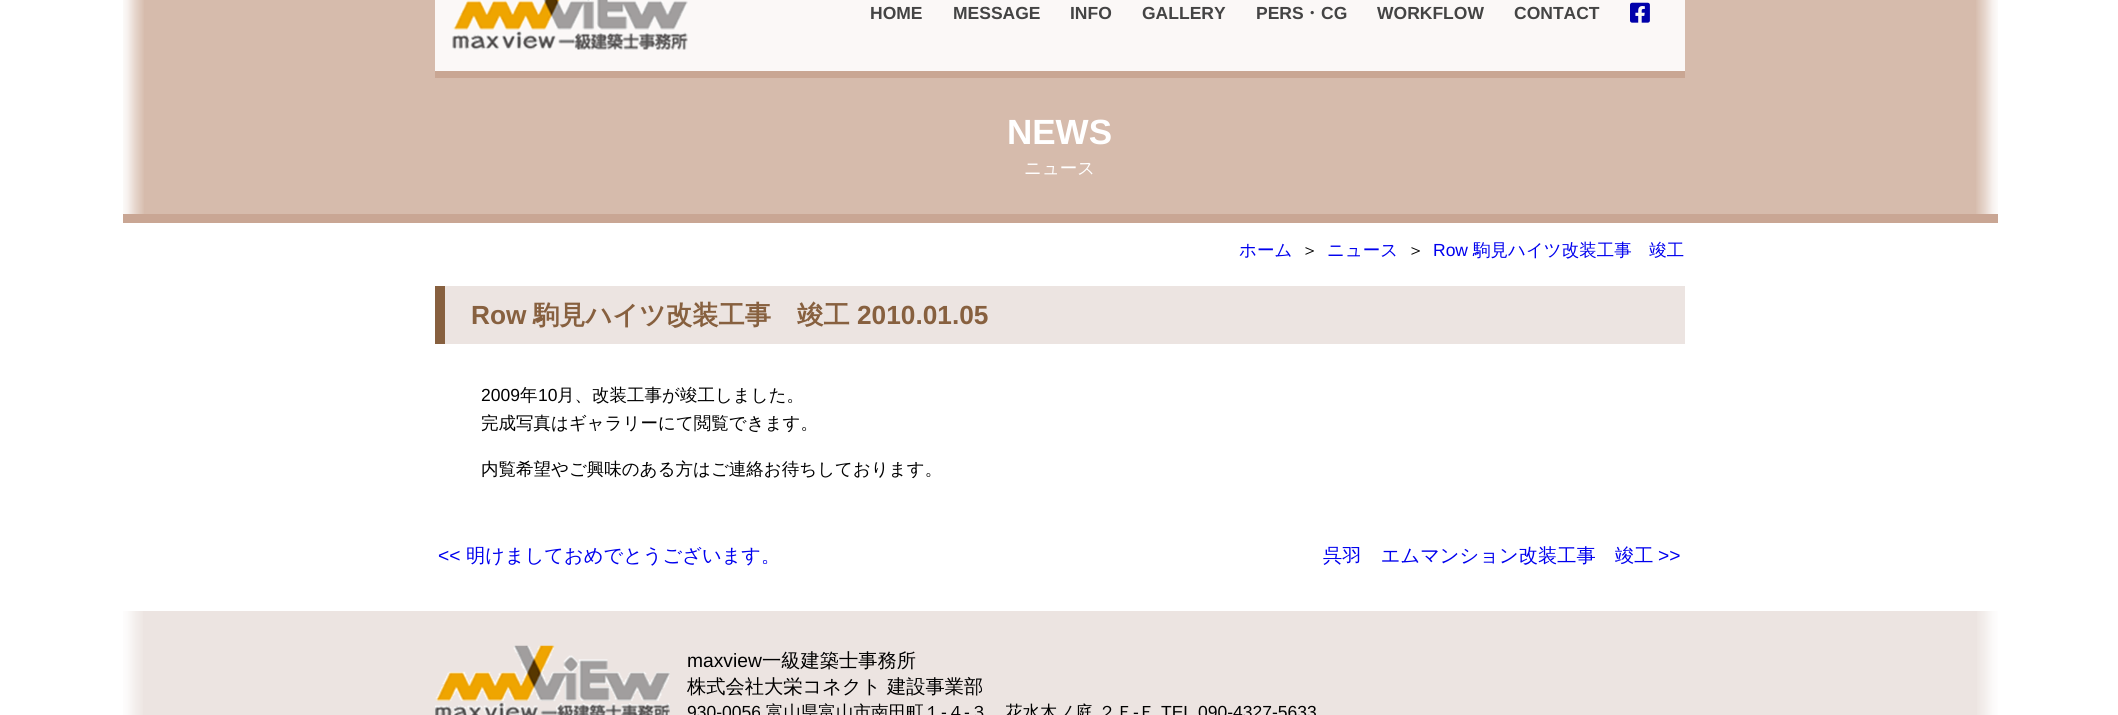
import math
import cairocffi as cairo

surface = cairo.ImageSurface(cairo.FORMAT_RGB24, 2118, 715)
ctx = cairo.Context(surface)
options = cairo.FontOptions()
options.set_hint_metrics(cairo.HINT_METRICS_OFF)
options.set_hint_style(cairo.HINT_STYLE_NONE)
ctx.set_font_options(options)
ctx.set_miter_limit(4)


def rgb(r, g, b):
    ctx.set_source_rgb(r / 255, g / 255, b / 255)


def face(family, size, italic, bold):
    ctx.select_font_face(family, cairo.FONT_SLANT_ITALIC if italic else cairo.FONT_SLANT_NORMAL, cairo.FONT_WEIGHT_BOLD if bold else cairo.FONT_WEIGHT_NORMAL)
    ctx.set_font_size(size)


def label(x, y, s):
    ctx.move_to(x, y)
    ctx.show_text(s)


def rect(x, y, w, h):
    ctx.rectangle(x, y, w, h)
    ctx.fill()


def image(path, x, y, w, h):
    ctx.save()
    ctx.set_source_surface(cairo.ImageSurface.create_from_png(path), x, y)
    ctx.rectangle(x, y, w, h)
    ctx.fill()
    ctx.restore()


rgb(255, 255, 255)
ctx.paint()
rgb(214, 187, 172)
rect(123, 0, 1875, 214)
rgb(201, 166, 148)
rect(123, 214, 1875, 9)
gradient = cairo.LinearGradient(120, 86, 145, 86)
gradient.add_color_stop_rgba(0, 1, 1, 1, 1)
gradient.add_color_stop_rgba(0.3, 1, 1, 1, 0.8)
gradient.add_color_stop_rgba(0.6, 1, 1, 1, 0.4)
gradient.add_color_stop_rgba(1, 1, 1, 1, 0)
ctx.set_source(gradient)
rect(123, 0, 21, 214)
rgb(251, 248, 247)
rect(435, 0, 1250, 71)
rgb(201, 166, 147)
rect(435, 71, 1250, 7)
image('image0.png', 452, 0, 236, 50)
face('Liberation Sans', 17.5, 0, 1)
rgb(68, 68, 68)
label(870, 19, 'HOME')
label(953, 19, 'MESSAGE')
label(1070, 19, 'INFO')
label(1142, 19, 'GALLERY')
label(1256, 19, 'PERS')
face('WenQuanYi Zen Hei', 17.5, 0, 1)
label(1303, 19, '・')
face('Liberation Sans', 17.5, 0, 1)
label(1321, 19, 'CG')
label(1377, 19, 'WORKFLOW')
label(1514, 19, 'CONTACT')
image('image1.png', 1630, 2, 20, 21)
gradient = cairo.LinearGradient(2000, 86, 1975, 86)
gradient.add_color_stop_rgba(0, 1, 1, 1, 1)
gradient.add_color_stop_rgba(0.3, 1, 1, 1, 0.8)
gradient.add_color_stop_rgba(0.6, 1, 1, 1, 0.4)
gradient.add_color_stop_rgba(1, 1, 1, 1, 0)
ctx.set_source(gradient)
rect(1976, 0, 22, 214)
face('Liberation Sans', 35, 0, 1)
rgb(255, 255, 255)
label(1007, 144, 'NEWS')
face('WenQuanYi Zen Hei Medium', 17.5, 0, 0)
label(1024, 174, 'ニュース')
rgb(0, 0, 238)
label(1239, 256, 'ホーム')
rgb(0, 0, 0)
label(1301, 256, '＞')
rgb(0, 0, 238)
label(1327, 256, 'ニュース')
rgb(0, 0, 0)
label(1407, 256, '＞')
face('Liberation Sans', 17.5, 0, 0)
rgb(0, 0, 238)
label(1433, 256, 'Row')
face('WenQuanYi Zen Hei Medium', 17.5, 0, 0)
label(1473, 256, '駒見ハイツ改装工事　竣工')
rgb(236, 228, 225)
rect(445, 286, 1240, 58)
rgb(135, 96, 63)
rect(435, 286, 10, 58)
face('Liberation Sans', 26.25, 0, 1)
label(471, 324, 'Row')
face('WenQuanYi Zen Hei', 26.25, 0, 1)
label(533, 324, '駒見ハイツ改装工事　竣工')
face('Liberation Sans', 26.25, 0, 1)
label(857, 324, '2010.01.05')
face('Liberation Sans', 17.5, 0, 0)
rgb(0, 0, 0)
label(481, 401, '2009')
face('WenQuanYi Zen Hei Medium', 17.5, 0, 0)
label(520, 401, '年')
face('Liberation Sans', 17.5, 0, 0)
label(538, 401, '10')
face('WenQuanYi Zen Hei Medium', 17.5, 0, 0)
label(557, 401, '月、改装工事が竣工しました。')
label(481, 429, '完成写真はギャラリーにて閲覧できます。')
label(481, 475, '内覧希望やご興味のある方はご連絡お待ちしております。')
face('Liberation Sans', 19.25, 0, 0)
rgb(0, 0, 238)
label(438, 562, '<<')
face('WenQuanYi Zen Hei Medium', 19.25, 0, 0)
label(466, 562, '明けましておめでとうございます。')
label(1323, 562, '呉羽　エムマンション改装工事　竣工')
face('Liberation Sans', 19.25, 0, 0)
label(1658, 562, '>>')
rgb(236, 228, 225)
rect(123, 611, 1875, 104)
gradient = cairo.LinearGradient(120, 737, 145, 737)
gradient.add_color_stop_rgba(0, 1, 1, 1, 1)
gradient.add_color_stop_rgba(0.3, 1, 1, 1, 0.8)
gradient.add_color_stop_rgba(0.6, 1, 1, 1, 0.4)
gradient.add_color_stop_rgba(1, 1, 1, 1, 0)
ctx.set_source(gradient)
rect(123, 611, 20, 104)
image('image2.png', 435, 645, 235, 70)
rgb(0, 0, 0)
label(687, 667, 'maxview')
face('WenQuanYi Zen Hei Medium', 19.25, 0, 0)
label(762, 667, '一級建築士事務所')
label(687, 693, '株式会社大栄コネクト')
label(887, 693, '建設事業部')
face('Liberation Sans', 17.5, 0, 0)
label(687, 718, '930-0056')
face('WenQuanYi Zen Hei Medium', 17.5, 0, 0)
label(766, 718, '富山県富山市南田町１')
face('Liberation Sans', 17.5, 0, 0)
label(941, 718, '-')
face('WenQuanYi Zen Hei Medium', 17.5, 0, 0)
label(947, 718, '４')
face('Liberation Sans', 17.5, 0, 0)
label(964, 718, '-')
face('WenQuanYi Zen Hei Medium', 17.5, 0, 0)
label(970, 718, '３　花水木ノ庭 ２Ｆ')
face('Liberation Sans', 17.5, 0, 0)
label(1133, 718, '-')
face('WenQuanYi Zen Hei Medium', 17.5, 0, 0)
label(1138, 718, 'Ｅ')
face('Liberation Sans', 17.5, 0, 0)
label(1161, 718, 'TEL.090-4327-5633')
gradient = cairo.LinearGradient(2000, 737, 1975, 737)
gradient.add_color_stop_rgba(0, 1, 1, 1, 1)
gradient.add_color_stop_rgba(0.3, 1, 1, 1, 0.8)
gradient.add_color_stop_rgba(0.6, 1, 1, 1, 0.4)
gradient.add_color_stop_rgba(1, 1, 1, 1, 0)
ctx.set_source(gradient)
rect(1977, 611, 21, 104)
surface.write_to_png('render.png')
